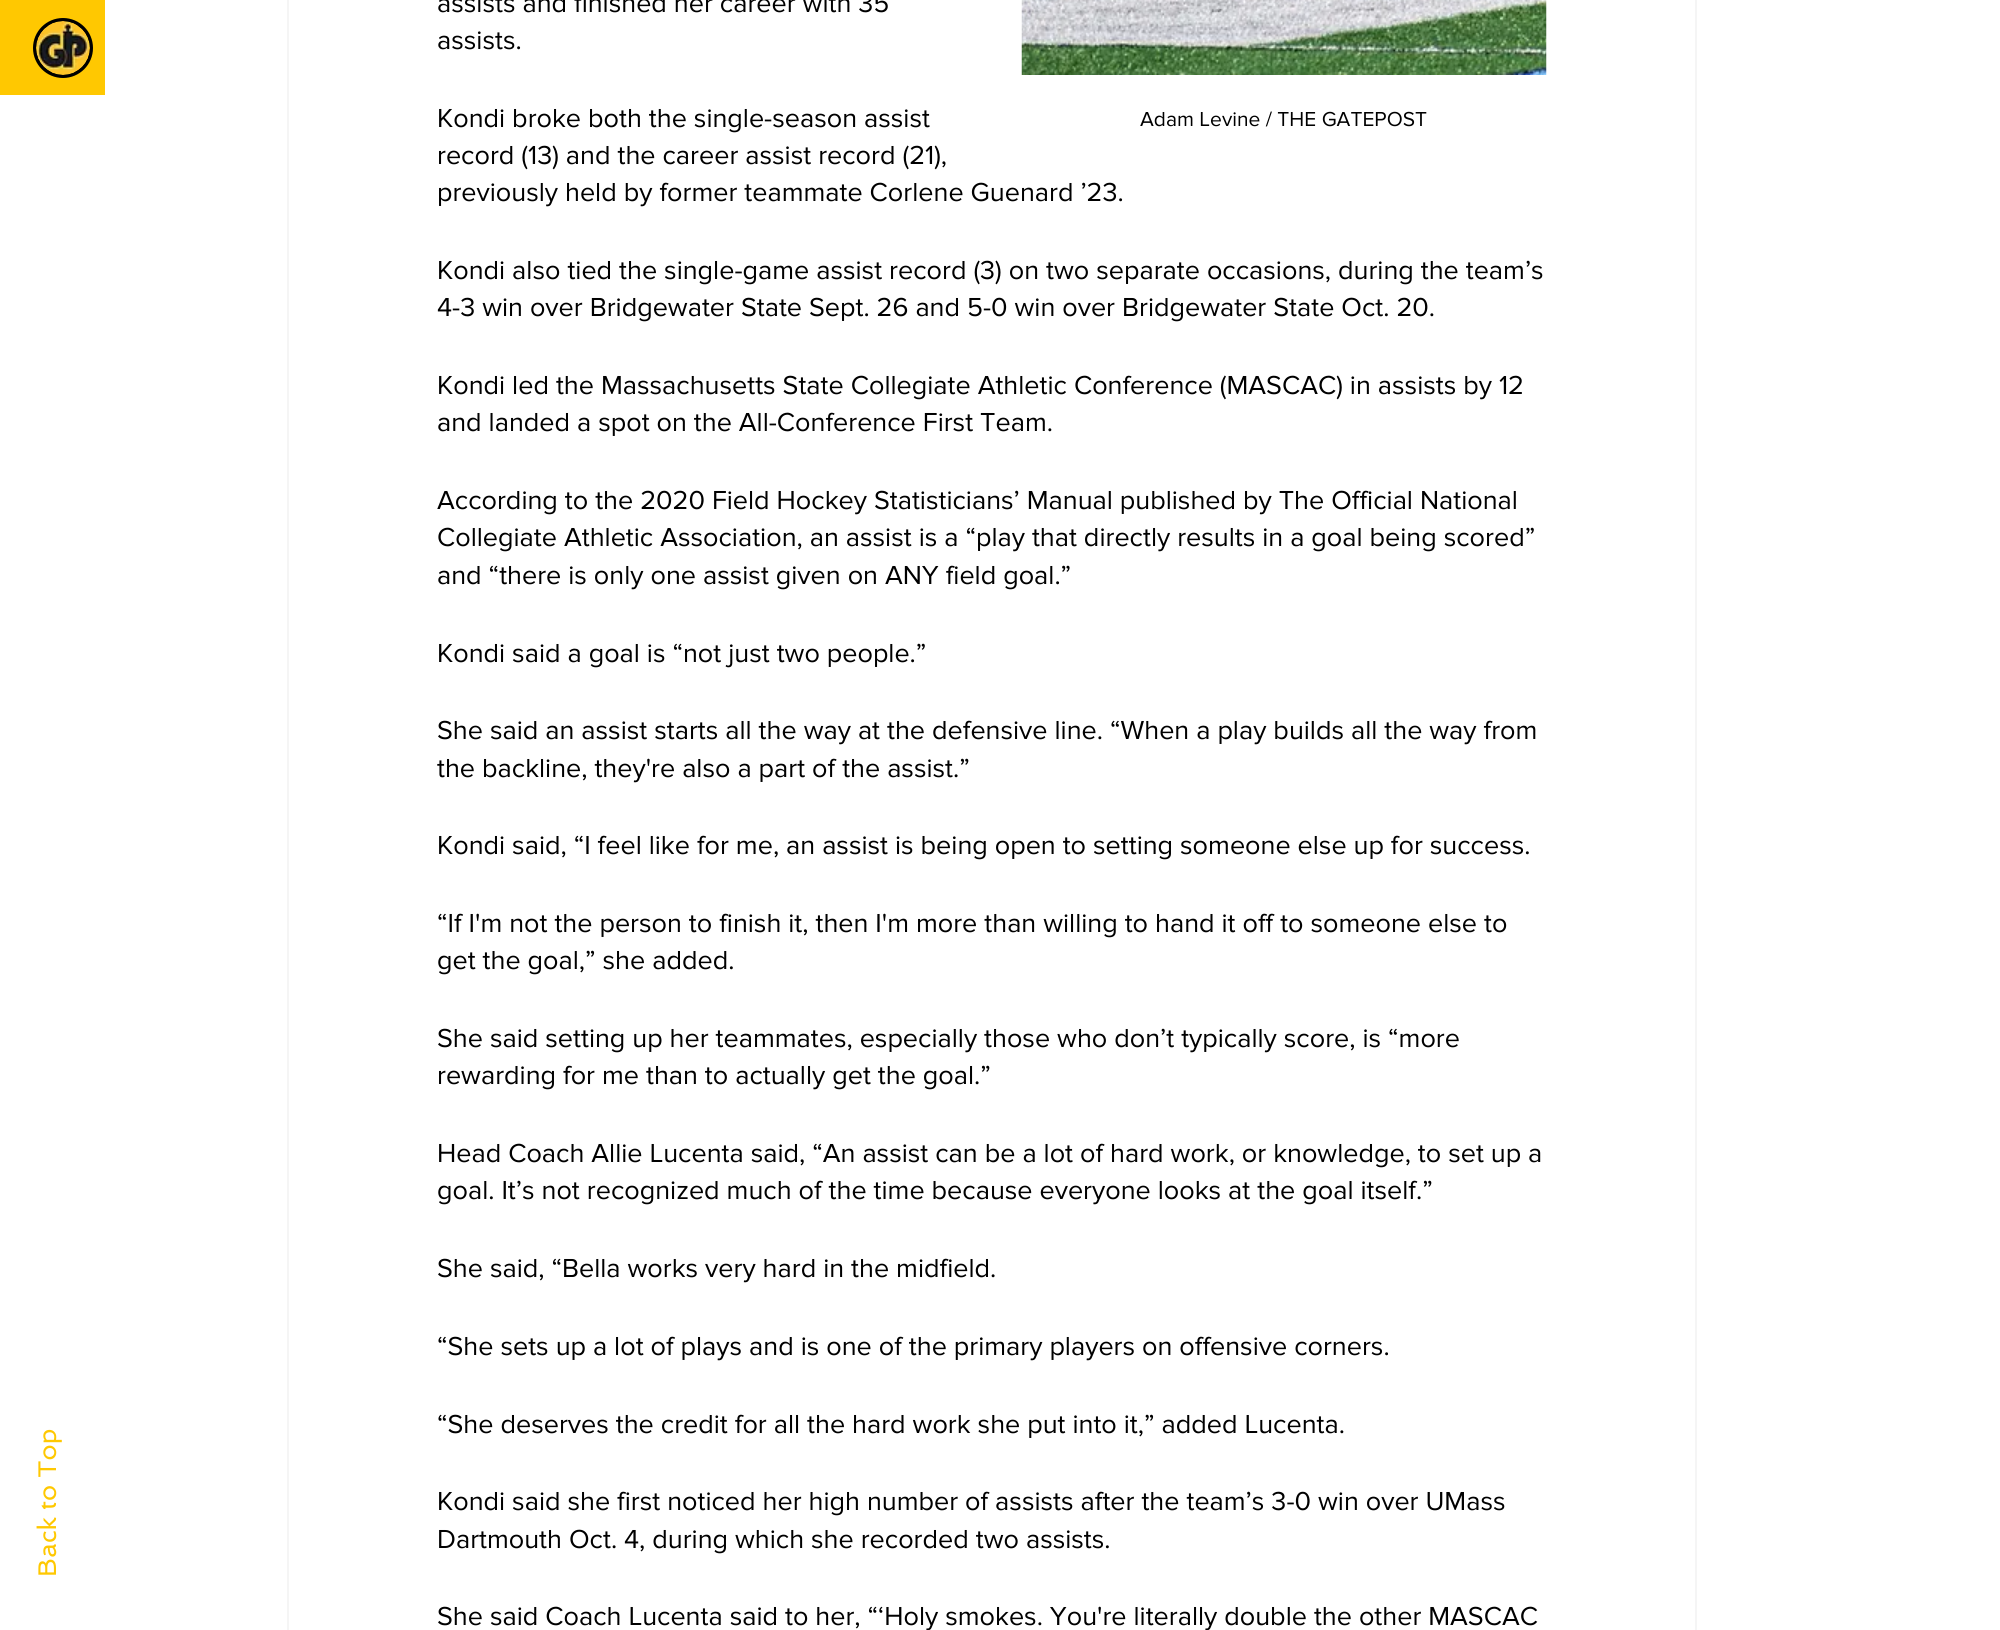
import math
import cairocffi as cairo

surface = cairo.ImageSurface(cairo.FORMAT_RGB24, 2000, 1630)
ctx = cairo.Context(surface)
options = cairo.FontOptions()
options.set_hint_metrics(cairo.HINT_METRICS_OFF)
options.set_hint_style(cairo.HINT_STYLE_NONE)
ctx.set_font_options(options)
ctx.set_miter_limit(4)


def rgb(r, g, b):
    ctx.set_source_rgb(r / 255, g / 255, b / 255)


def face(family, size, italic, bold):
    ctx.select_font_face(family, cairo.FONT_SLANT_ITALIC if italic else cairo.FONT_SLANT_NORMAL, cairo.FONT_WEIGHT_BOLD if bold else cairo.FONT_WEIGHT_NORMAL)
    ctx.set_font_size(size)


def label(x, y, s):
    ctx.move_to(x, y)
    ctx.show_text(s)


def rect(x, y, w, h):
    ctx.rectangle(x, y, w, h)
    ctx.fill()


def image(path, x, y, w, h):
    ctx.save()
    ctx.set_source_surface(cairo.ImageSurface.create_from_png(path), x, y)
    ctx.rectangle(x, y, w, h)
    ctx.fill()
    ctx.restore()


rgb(255, 255, 255)
ctx.paint()
rgb(255, 200, 1)
rect(0, 0, 105, 95)
rgb(0, 0, 0)
ctx.arc(63, 48, 28.5, 0, 2 * math.pi)
ctx.fill_preserve()
ctx.set_line_width(3)
ctx.stroke()
image('image0.png', 36, 21, 54, 54)
ctx.rectangle(288, -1, 1408, 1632)
rgb(245, 245, 245)
ctx.set_line_width(2)
ctx.stroke()
face('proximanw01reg', 27, 0, 0)
rgb(0, 0, 0)
label(437, 12, 'assists and finished her career with 35')
label(437, 49, 'assists.')
label(437, 127, 'Kondi broke both the single-season assist')
label(437, 164, 'record (13) and the career assist record (21),')
label(437, 201, 'previously held by former teammate Corlene Guenard ’23.')
image('image1.png', 1021, 0, 526, 75)
face('proximanw01reg', 21, 0, 0)
label(1140, 126, 'Adam Levine / THE GATEPOST')
face('proximanw01reg', 27, 0, 0)
label(437, 279, 'Kondi also tied the single-game assist record (3) on two separate occasions, during the team’s')
label(437, 316, '4-3 win over Bridgewater State Sept. 26 and 5-0 win over Bridgewater State Oct. 20.')
label(437, 394, 'Kondi led the Massachusetts State Collegiate Athletic Conference (MASCAC) in assists by 12')
label(437, 431, 'and landed a spot on the All-Conference First Team.')
label(437, 509, 'According to the 2020 Field Hockey Statisticians’ Manual published by The Official National')
label(437, 546, 'Collegiate Athletic Association, an assist is a “play that directly results in a goal being scored”')
label(437, 584, 'and “there is only one assist given on ANY field goal.”')
label(437, 662, 'Kondi said a goal is “not just two people.”')
label(437, 739, 'She said an assist starts all the way at the defensive line. “When a play builds all the way from')
label(437, 777, 'the backline, they\'re also a part of the assist.”')
label(437, 854, 'Kondi said, “I feel like for me, an assist is being open to setting someone else up for success.')
label(437, 932, '“If I\'m not the person to finish it, then I\'m more than willing to hand it off to someone else to')
label(437, 969, 'get the goal,” she added.')
label(437, 1047, 'She said setting up her teammates, especially those who don’t typically score, is “more')
label(437, 1084, 'rewarding for me than to actually get the goal.”')
label(437, 1162, 'Head Coach Allie Lucenta said, “An assist can be a lot of hard work, or knowledge, to set up a')
label(437, 1199, 'goal. It’s not recognized much of the time because everyone looks at the goal itself.”')
label(437, 1277, 'She said, “Bella works very hard in the midfield.')
label(437, 1355, '“She sets up a lot of plays and is one of the primary players on offensive corners.')
label(437, 1433, '“She deserves the credit for all the hard work she put into it,” added Lucenta.')
label(437, 1510, 'Kondi said she first noticed her high number of assists after the team’s 3-0 win over UMass')
label(437, 1548, 'Dartmouth Oct. 4, during which she recorded two assists.')
label(437, 1625, 'She said Coach Lucenta said to her, “‘Holy smokes. You\'re literally double the other MASCAC')
face('Spinnaker', 25.5, 0, 0)
rgb(255, 200, 1)
ctx.save()
ctx.translate(56, 1577)
ctx.rotate(-90 * math.pi / 180)
label(0, 0, 'Back to Top')
ctx.restore()
surface.write_to_png('render.png')
